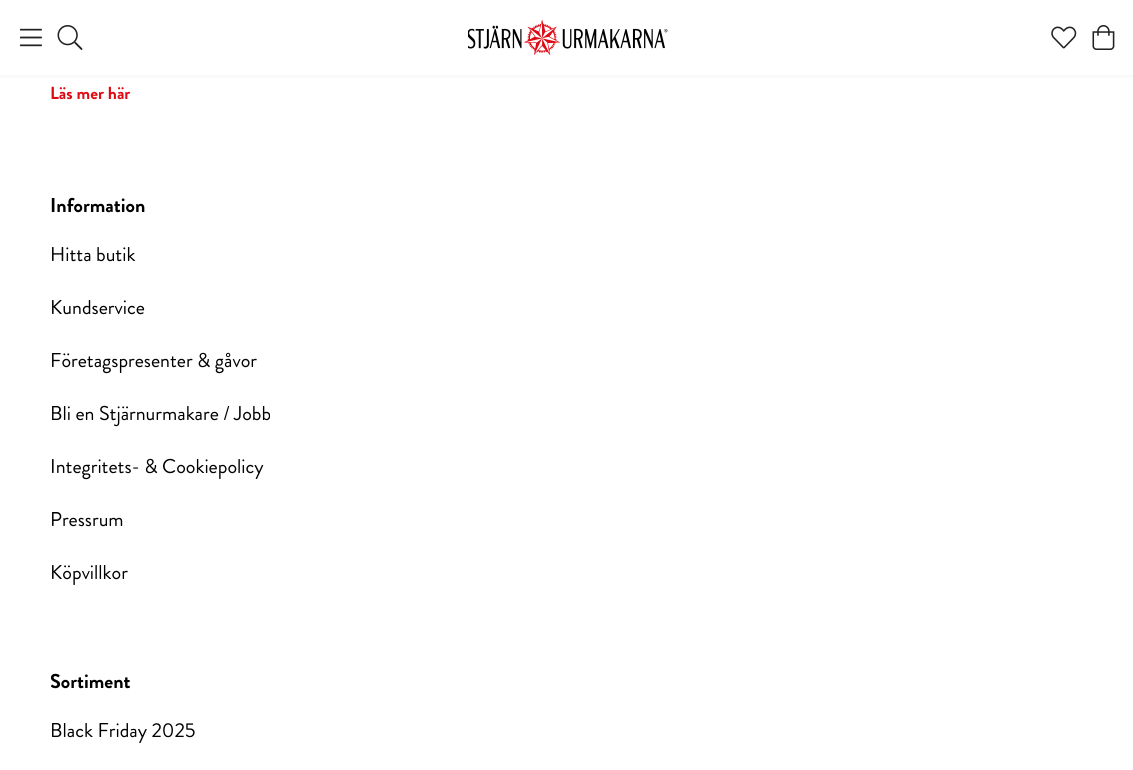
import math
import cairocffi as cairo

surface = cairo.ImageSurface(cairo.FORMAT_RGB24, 1133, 770)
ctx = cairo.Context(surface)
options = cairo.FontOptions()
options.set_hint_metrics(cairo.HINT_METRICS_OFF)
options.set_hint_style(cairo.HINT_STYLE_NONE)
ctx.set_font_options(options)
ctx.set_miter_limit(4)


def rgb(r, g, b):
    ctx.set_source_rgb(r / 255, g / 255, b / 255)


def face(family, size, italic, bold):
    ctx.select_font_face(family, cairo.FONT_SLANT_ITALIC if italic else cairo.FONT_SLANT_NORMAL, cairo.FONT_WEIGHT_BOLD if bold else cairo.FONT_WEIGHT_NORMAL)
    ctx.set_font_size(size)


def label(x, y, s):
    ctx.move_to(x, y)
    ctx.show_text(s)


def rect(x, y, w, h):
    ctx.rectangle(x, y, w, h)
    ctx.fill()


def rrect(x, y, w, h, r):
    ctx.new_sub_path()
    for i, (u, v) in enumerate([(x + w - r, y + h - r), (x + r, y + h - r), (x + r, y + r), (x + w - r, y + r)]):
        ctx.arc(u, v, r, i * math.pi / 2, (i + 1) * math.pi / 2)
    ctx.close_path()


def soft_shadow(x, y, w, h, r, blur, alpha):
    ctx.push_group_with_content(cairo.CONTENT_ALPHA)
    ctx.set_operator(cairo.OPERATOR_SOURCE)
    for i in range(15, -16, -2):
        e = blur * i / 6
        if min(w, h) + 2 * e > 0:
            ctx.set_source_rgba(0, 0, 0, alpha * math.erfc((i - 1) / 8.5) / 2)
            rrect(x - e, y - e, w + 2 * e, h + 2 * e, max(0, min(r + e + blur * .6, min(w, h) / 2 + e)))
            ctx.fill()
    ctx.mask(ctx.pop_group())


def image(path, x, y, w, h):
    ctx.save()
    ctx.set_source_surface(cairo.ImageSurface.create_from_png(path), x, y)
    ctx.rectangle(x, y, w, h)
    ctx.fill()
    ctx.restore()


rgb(255, 255, 255)
ctx.paint()
rgb(0, 0, 0)
soft_shadow(0, 1, 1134, 75, 0, 2, 0.05)
rgb(255, 255, 255)
rect(0, 0, 1133, 75)
image('image0.png', 20, 28, 22, 19)
image('image1.png', 57, 25, 26, 25)
image('image2.png', 468, 19, 200, 37)
image('image3.png', 1051, 26, 26, 23)
image('image4.png', 1092, 25, 23, 25)
face('Brandon Grotesque', 17.5, 0, 1)
rgb(223, 9, 20)
label(50, 99, 'Läs mer här')
face('Brandon Grotesque', 20, 0, 1)
rgb(0, 0, 0)
label(50, 212, 'Information')
face('Brandon Grotesque', 20, 0, 0)
label(50, 261, 'Hitta butik')
label(50, 314, 'Kundservice')
label(50, 367, 'Företagspresenter & gåvor')
label(50, 420, 'Bli en Stjärnurmakare / Jobb')
label(50, 473, 'Integritets- & Cookiepolicy')
label(50, 526, 'Pressrum')
label(50, 579, 'Köpvillkor')
face('Brandon Grotesque', 20, 0, 1)
label(50, 688, 'Sortiment')
face('Brandon Grotesque', 20, 0, 0)
label(50, 737, 'Black Friday 2025')
surface.write_to_png('render.png')
